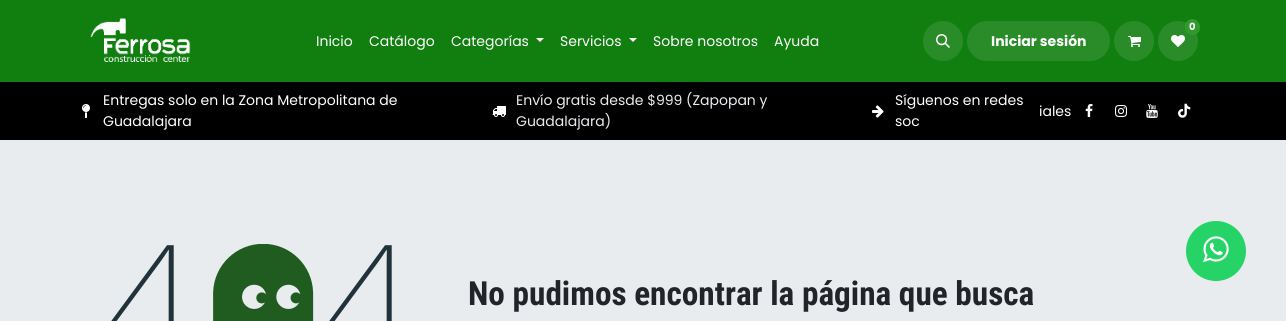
import math
import cairocffi as cairo

surface = cairo.ImageSurface(cairo.FORMAT_RGB24, 1286, 321)
ctx = cairo.Context(surface)
options = cairo.FontOptions()
options.set_hint_metrics(cairo.HINT_METRICS_OFF)
options.set_hint_style(cairo.HINT_STYLE_NONE)
ctx.set_font_options(options)
ctx.set_miter_limit(4)


def rgb(r, g, b):
    ctx.set_source_rgb(r / 255, g / 255, b / 255)


def face(family, size, italic, bold):
    ctx.select_font_face(family, cairo.FONT_SLANT_ITALIC if italic else cairo.FONT_SLANT_NORMAL, cairo.FONT_WEIGHT_BOLD if bold else cairo.FONT_WEIGHT_NORMAL)
    ctx.set_font_size(size)


def label(x, y, s):
    ctx.move_to(x, y)
    ctx.show_text(s)


def rect(x, y, w, h):
    ctx.rectangle(x, y, w, h)
    ctx.fill()


def rrect(x, y, w, h, r):
    ctx.new_sub_path()
    for i, (u, v) in enumerate([(x + w - r, y + h - r), (x + r, y + h - r), (x + r, y + r), (x + w - r, y + r)]):
        ctx.arc(u, v, r, i * math.pi / 2, (i + 1) * math.pi / 2)
    ctx.close_path()


def image(path, x, y, w, h):
    ctx.save()
    ctx.set_source_surface(cairo.ImageSurface.create_from_png(path), x, y)
    ctx.rectangle(x, y, w, h)
    ctx.fill()
    ctx.restore()


rgb(233, 236, 239)
ctx.paint()
rgb(17, 127, 16)
rect(0, 0, 1286, 82)
image('image0.png', 90, 18, 101, 44)
face('Poppins', 14, 0, 0)
rgb(255, 255, 255)
label(316, 46, 'Inicio')
label(369, 46, 'Catálogo')
label(451, 46, 'Categorías')
ctx.new_path()
ctx.move_to(536, 38)
ctx.line_to(544, 38)
ctx.line_to(540, 42)
ctx.close_path()
ctx.fill()
label(560, 46, 'Servicios')
ctx.new_path()
ctx.move_to(629, 38)
ctx.line_to(637, 38)
ctx.line_to(633, 42)
ctx.close_path()
ctx.fill()
label(653, 46, 'Sobre nosotros')
label(774, 46, 'Ayuda')
rgb(41, 140, 40)
ctx.new_path()
ctx.arc(943, 41, 20, 0, 2 * math.pi)
ctx.fill()
image('image1.png', 936, 34, 14, 14)
ctx.arc(1134, 41, 20, 0, 2 * math.pi)
ctx.fill()
image('image2.png', 1128, 36, 13, 11)
ctx.arc(1178, 41, 20, 0, 2 * math.pi)
ctx.fill()
rgb(46, 155, 44)
rrect(1185, 19, 15, 16, 7.5)
ctx.fill()
face('Poppins', 10, 0, 1)
rgb(255, 255, 255)
label(1189, 30, '0')
image('image3.png', 1171, 35, 14, 12)
rgb(41, 140, 40)
rrect(967, 21, 143, 40, 20)
ctx.fill()
face('Poppins', 14, 0, 1)
rgb(255, 255, 255)
label(991, 46, 'Iniciar sesión')
rgb(0, 0, 0)
rect(0, 82, 1286, 58)
face('Poppins', 14, 0, 0)
rgb(255, 255, 255)
label(103, 105, 'Entregas solo en la Zona Metropolitana de')
image('image4.png', 82, 104, 8, 14)
label(103, 126, 'Guadalajara')
image('image5.png', 492, 106, 14, 11)
rgb(233, 236, 239)
label(516, 105, 'Envío gratis desde $999 (Zapopan y')
label(516, 126, 'Guadalajara)')
image('image6.png', 872, 105, 12, 13)
rgb(255, 255, 255)
label(895, 105, 'Síguenos en redes')
label(895, 126, 'soc')
label(1039, 116, 'iales')
image('image7.png', 1085, 104, 8, 13)
image('image8.png', 1115, 105, 12, 12)
image('image9.png', 1146, 104, 12, 14)
image('image10.png', 1178, 103, 13, 15)
image('image11.png', 111, 244, 281, 77)
face('Roboto Condensed', 33.25, 0, 1)
rgb(33, 37, 41)
label(468, 305, 'No pudimos encontrar la página que busca')
rgb(37, 211, 102)
ctx.new_path()
ctx.arc(1216, 251, 30, 0, 2 * math.pi)
ctx.fill()
image('image12.png', 1203, 236, 26, 27)
surface.write_to_png('render.png')
